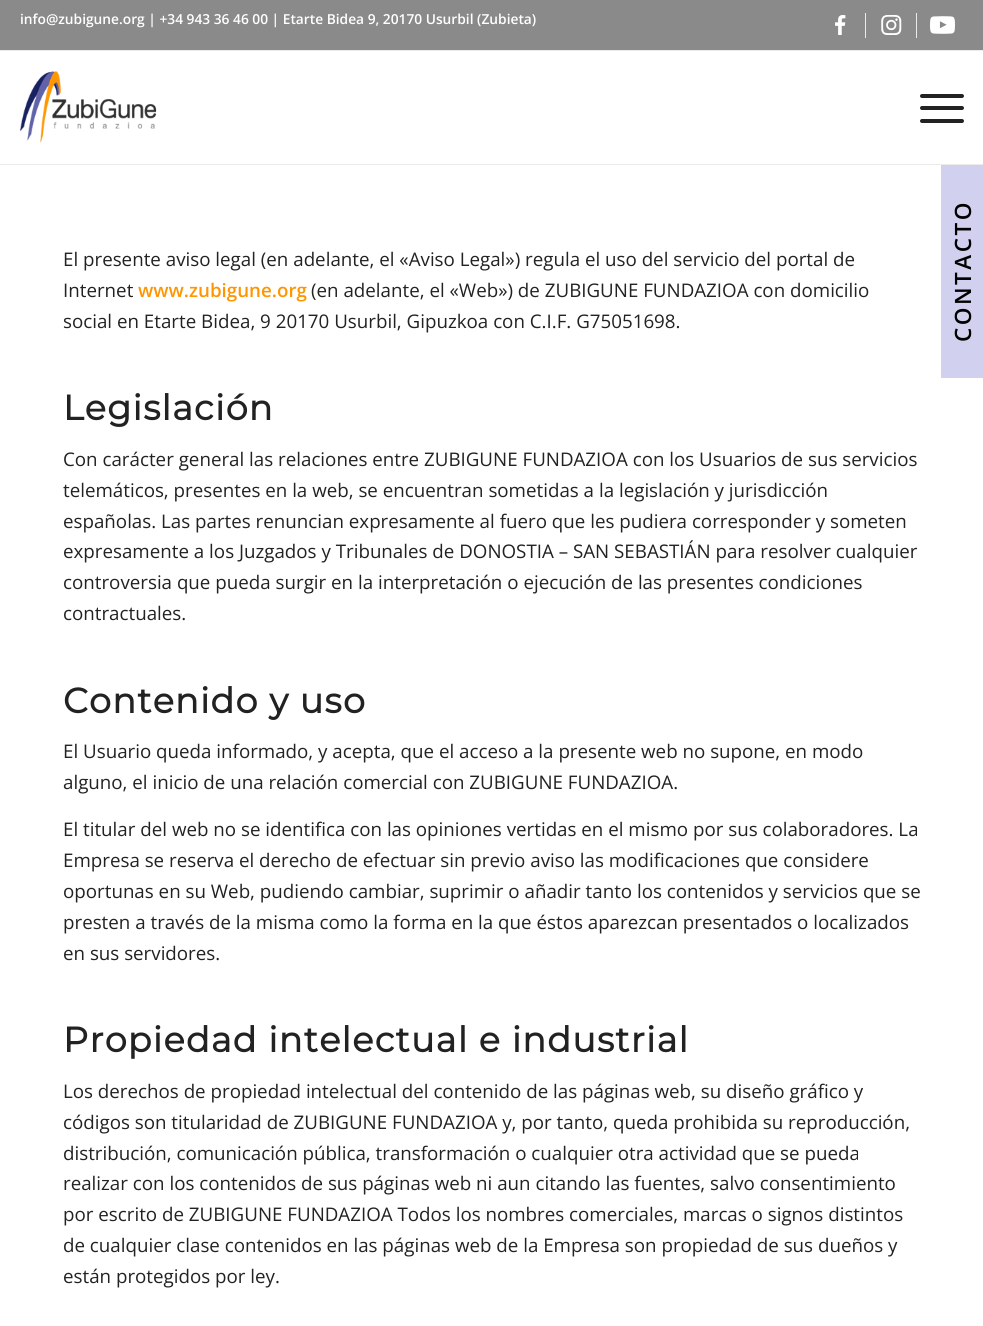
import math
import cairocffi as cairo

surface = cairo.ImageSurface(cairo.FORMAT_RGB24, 983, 1326)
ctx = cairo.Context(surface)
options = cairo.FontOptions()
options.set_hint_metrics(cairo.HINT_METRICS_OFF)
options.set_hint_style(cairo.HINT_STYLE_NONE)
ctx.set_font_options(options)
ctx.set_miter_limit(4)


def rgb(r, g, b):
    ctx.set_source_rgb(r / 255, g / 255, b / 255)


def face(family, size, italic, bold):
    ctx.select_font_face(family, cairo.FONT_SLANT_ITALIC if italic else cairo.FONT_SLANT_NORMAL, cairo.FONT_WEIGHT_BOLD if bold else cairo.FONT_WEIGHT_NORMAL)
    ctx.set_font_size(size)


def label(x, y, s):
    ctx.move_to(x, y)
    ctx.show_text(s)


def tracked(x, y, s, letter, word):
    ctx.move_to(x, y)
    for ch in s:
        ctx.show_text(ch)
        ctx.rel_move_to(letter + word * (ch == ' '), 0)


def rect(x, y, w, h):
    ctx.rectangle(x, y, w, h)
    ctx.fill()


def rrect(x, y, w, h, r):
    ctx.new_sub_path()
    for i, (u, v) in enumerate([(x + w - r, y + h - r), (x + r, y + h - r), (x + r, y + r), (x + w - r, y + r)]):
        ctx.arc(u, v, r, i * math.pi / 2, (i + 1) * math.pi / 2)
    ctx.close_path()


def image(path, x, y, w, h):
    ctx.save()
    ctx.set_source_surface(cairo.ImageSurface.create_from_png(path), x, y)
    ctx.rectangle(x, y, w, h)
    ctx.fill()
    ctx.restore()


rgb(255, 255, 255)
ctx.paint()
rgb(138, 138, 138)
rect(0, 0, 983, 50)
rgb(235, 235, 235)
rect(0, 50, 983, 1)
face('Open Sans SemiBold', 13.75, 0, 0)
rgb(255, 255, 255)
label(20, 24, 'info@zubigune.org | +34 943 36 46 00 | Etarte Bidea 9, 20170 Usurbil (Zubieta)')
rgb(235, 235, 235)
rect(865, 13, 1, 25)
image('image0.png', 835, 15, 11, 20)
rect(916, 13, 1, 25)
image('image1.png', 881, 15, 21, 20)
image('image2.png', 930, 16, 25, 18)
rect(0, 164, 983, 1)
image('image3.png', 20, 71, 137, 72)
rgb(34, 34, 34)
rrect(920, 106, 44, 4, 2)
ctx.fill()
rrect(920, 94, 44, 4, 2)
ctx.fill()
rrect(920, 119, 44, 4, 2)
ctx.fill()
face('Open Sans', 18.75, 0, 0)
label(63, 266, 'El presente aviso legal (en adelante, el «Aviso Legal») regula el uso del servicio del portal de')
label(63, 297, 'Internet')
face('Open Sans SemiBold', 18.75, 0, 0)
rgb(255, 149, 0)
label(138, 297, 'www.zubigune.org')
face('Open Sans', 18.75, 0, 0)
rgb(34, 34, 34)
label(311, 297, '(en adelante, el «Web») de ZUBIGUNE FUNDAZIOA con domicilio')
label(63, 328, 'social en Etarte Bidea, 9 20170 Usurbil, Gipuzkoa con C.I.F. G75051698.')
face('Montserrat', 35, 0, 1)
tracked(63, 420, 'Legislación', 1.25, 0)
face('Open Sans', 18.75, 0, 0)
label(63, 466, 'Con carácter general las relaciones entre ZUBIGUNE FUNDAZIOA con los Usuarios de sus servicios')
label(63, 497, 'telemáticos, presentes en la web, se encuentran sometidas a la legislación y jurisdicción')
label(63, 528, 'españolas. Las partes renuncian expresamente al fuero que les pudiera corresponder y someten')
label(63, 558, 'expresamente a los Juzgados y Tribunales de DONOSTIA – SAN SEBASTIÁN para resolver cualquier')
label(63, 589, 'controversia que pueda surgir en la interpretación o ejecución de las presentes condiciones')
label(63, 620, 'contractuales.')
face('Montserrat', 35, 0, 1)
tracked(63, 713, 'Contenido y uso', 1.25, 0)
face('Open Sans', 18.75, 0, 0)
label(63, 758, 'El Usuario queda informado, y acepta, que el acceso a la presente web no supone, en modo')
label(63, 789, 'alguno, el inicio de una relación comercial con ZUBIGUNE FUNDAZIOA.')
label(63, 836, 'El titular del web no se identifica con las opiniones vertidas en el mismo por sus colaboradores. La')
label(63, 867, 'Empresa se reserva el derecho de efectuar sin previo aviso las modificaciones que considere')
label(63, 898, 'oportunas en su Web, pudiendo cambiar, suprimir o añadir tanto los contenidos y servicios que se')
label(63, 929, 'presten a través de la misma como la forma en la que éstos aparezcan presentados o localizados')
label(63, 960, 'en sus servidores.')
face('Montserrat', 35, 0, 1)
tracked(63, 1052, 'Propiedad intelectual e industrial', 1.25, 0)
face('Open Sans', 18.75, 0, 0)
label(63, 1098, 'Los derechos de propiedad intelectual del contenido de las páginas web, su diseño gráfico y')
label(63, 1129, 'códigos son titularidad de ZUBIGUNE FUNDAZIOA y, por tanto, queda prohibida su reproducción,')
label(63, 1160, 'distribución, comunicación pública, transformación o cualquier otra actividad que se pueda')
label(63, 1190, 'realizar con los contenidos de sus páginas web ni aun citando las fuentes, salvo consentimiento')
label(63, 1221, 'por escrito de ZUBIGUNE FUNDAZIOA Todos los nombres comerciales, marcas o signos distintos')
label(63, 1252, 'de cualquier clase contenidos en las páginas web de la Empresa son propiedad de sus dueños y')
label(63, 1283, 'están protegidos por ley.')
rgb(209, 209, 239)
rect(941, 165, 42, 213)
face('Open Sans SemiBold', 22.5, 0, 0)
rgb(0, 0, 0)
ctx.save()
ctx.translate(971, 342)
ctx.rotate(-90 * math.pi / 180)
tracked(0, 0, 'CONTACTO', 2.5, 0)
ctx.restore()
surface.write_to_png('render.png')
